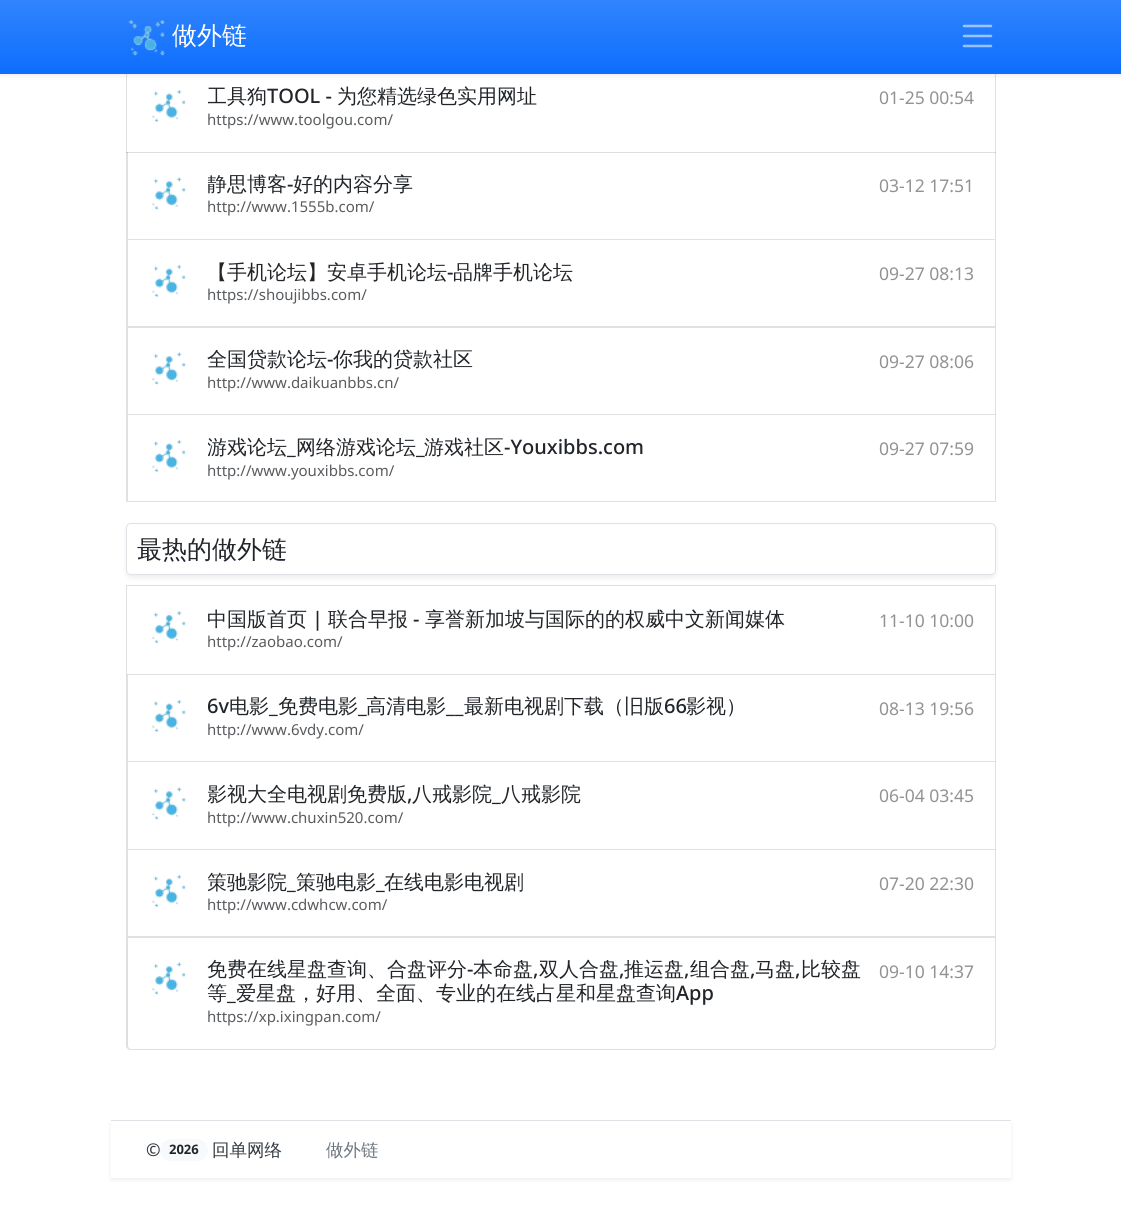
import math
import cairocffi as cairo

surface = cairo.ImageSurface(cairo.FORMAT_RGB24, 1121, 1230)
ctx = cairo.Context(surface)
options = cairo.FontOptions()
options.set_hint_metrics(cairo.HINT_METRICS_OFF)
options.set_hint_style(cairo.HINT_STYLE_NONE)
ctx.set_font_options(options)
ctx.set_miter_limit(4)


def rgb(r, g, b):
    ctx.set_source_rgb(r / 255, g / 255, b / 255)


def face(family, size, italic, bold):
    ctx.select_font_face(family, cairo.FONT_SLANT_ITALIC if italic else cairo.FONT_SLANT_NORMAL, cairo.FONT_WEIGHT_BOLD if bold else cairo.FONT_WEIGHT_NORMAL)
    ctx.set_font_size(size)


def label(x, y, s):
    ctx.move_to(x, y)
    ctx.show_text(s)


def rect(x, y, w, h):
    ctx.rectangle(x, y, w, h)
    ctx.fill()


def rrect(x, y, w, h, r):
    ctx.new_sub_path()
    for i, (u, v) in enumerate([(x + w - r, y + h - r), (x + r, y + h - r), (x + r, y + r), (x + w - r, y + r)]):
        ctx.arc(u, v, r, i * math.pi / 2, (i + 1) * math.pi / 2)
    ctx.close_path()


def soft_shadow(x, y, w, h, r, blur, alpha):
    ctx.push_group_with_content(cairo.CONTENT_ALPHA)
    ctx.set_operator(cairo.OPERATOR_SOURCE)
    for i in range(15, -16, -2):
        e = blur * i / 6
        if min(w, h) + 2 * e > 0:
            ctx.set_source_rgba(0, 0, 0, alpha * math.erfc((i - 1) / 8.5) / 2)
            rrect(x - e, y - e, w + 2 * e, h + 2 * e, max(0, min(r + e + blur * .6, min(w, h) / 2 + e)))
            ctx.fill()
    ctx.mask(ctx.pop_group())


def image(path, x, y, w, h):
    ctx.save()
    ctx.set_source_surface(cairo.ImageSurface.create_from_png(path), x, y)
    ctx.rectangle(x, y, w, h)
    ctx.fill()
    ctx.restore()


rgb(255, 255, 255)
ctx.paint()
ctx.rectangle(126.5, 64.5, 869, 88)
rgb(223, 223, 223)
ctx.set_line_width(1)
ctx.stroke()
rgb(0, 0, 0)
soft_shadow(0, 3, 1121, 73, 0, 2.5, 0.07)
gradient = cairo.LinearGradient(561, 0, 561, 74)
gradient.add_color_stop_rgba(0, 0.192, 0.518, 0.992, 1)
gradient.add_color_stop_rgba(1, 0.051, 0.431, 0.992, 1)
ctx.set_source(gradient)
rect(0, 0, 1121, 74)
image('image0.png', 128, 20, 37, 36)
face('WenQuanYi Zen Hei Medium', 25, 0, 0)
rgb(255, 255, 255)
label(172, 44, '做外链')
ctx.new_path()
ctx.move_to(964, 26)
ctx.line_to(991, 26)
ctx.move_to(964, 36)
ctx.line_to(991, 36)
ctx.move_to(964, 46)
ctx.line_to(991, 46)
ctx.set_source_rgba(1, 1, 1, 0.55)
ctx.set_line_width(2.5)
ctx.set_line_cap(cairo.LINE_CAP_ROUND)
ctx.stroke()
image('image1.png', 152, 89, 34, 34)
ctx.save()
ctx.rectangle(208, 85, 767, 46)
ctx.clip()
face('WenQuanYi Zen Hei Medium', 20, 0, 0)
rgb(33, 37, 41)
label(207, 103, '工具狗')
ctx.restore()
face('Noto Sans Medium', 20, 0, 0)
rgb(33, 37, 41)
label(267, 103, 'TOOL -')
face('WenQuanYi Zen Hei Medium', 20, 0, 0)
label(337, 103, '为您精选绿色实用网址')
face('Noto Sans', 15, 0, 0)
rgb(89, 92, 95)
label(207, 125, 'https://www.toolgou.com/')
face('Noto Sans', 17.5, 0, 0)
rgb(144, 146, 148)
label(879, 104, '01-25 00:54')
ctx.set_source_rgba(0, 0, 0, 0.12)
ctx.new_path()
ctx.move_to(996, 152)
ctx.line_to(996, 240)
ctx.line_to(995, 239)
ctx.line_to(995, 152)
ctx.close_path()
ctx.fill()
ctx.new_path()
ctx.move_to(996, 240)
ctx.line_to(126, 240)
ctx.line_to(128, 239)
ctx.line_to(995, 239)
ctx.close_path()
ctx.fill()
ctx.new_path()
ctx.move_to(126, 240)
ctx.line_to(126, 152)
ctx.line_to(128, 152)
ctx.line_to(128, 239)
ctx.close_path()
ctx.fill()
image('image2.png', 152, 177, 34, 33)
ctx.save()
ctx.rectangle(208, 173, 767, 46)
ctx.clip()
face('WenQuanYi Zen Hei Medium', 20, 0, 0)
rgb(33, 37, 41)
label(207, 191, '静思博客')
ctx.restore()
face('Noto Sans Medium', 20, 0, 0)
rgb(33, 37, 41)
label(287, 191, '-')
face('WenQuanYi Zen Hei Medium', 20, 0, 0)
label(293, 191, '好的内容分享')
face('Noto Sans', 15, 0, 0)
rgb(89, 92, 95)
label(207, 212, 'http://www.1555b.com/')
face('Noto Sans', 17.5, 0, 0)
rgb(144, 146, 148)
label(879, 192, '03-12 17:51')
rgb(223, 223, 223)
ctx.new_path()
ctx.move_to(996, 240)
ctx.line_to(996, 328)
ctx.line_to(995, 326)
ctx.line_to(995, 240)
ctx.close_path()
ctx.fill()
ctx.set_source_rgba(0, 0, 0, 0.12)
ctx.new_path()
ctx.move_to(996, 328)
ctx.line_to(126, 328)
ctx.line_to(128, 326)
ctx.line_to(995, 326)
ctx.close_path()
ctx.fill()
ctx.new_path()
ctx.move_to(126, 328)
ctx.line_to(126, 240)
ctx.line_to(128, 240)
ctx.line_to(128, 326)
ctx.close_path()
ctx.fill()
image('image1.png', 152, 264, 34, 34)
face('WenQuanYi Zen Hei Medium', 20, 0, 0)
rgb(33, 37, 41)
label(207, 279, '【手机论坛】安卓手机论坛')
face('Noto Sans Medium', 20, 0, 0)
label(447, 279, '-')
face('WenQuanYi Zen Hei Medium', 20, 0, 0)
label(453, 279, '品牌手机论坛')
face('Noto Sans', 15, 0, 0)
rgb(89, 92, 95)
label(207, 300, 'https://shoujibbs.com/')
face('Noto Sans', 17.5, 0, 0)
rgb(144, 146, 148)
label(879, 280, '09-27 08:13')
rgb(223, 223, 223)
ctx.new_path()
ctx.move_to(996, 328)
ctx.line_to(996, 415)
ctx.line_to(995, 414)
ctx.line_to(995, 328)
ctx.close_path()
ctx.fill()
ctx.set_source_rgba(0, 0, 0, 0.12)
ctx.new_path()
ctx.move_to(996, 415)
ctx.line_to(126, 415)
ctx.line_to(128, 414)
ctx.line_to(995, 414)
ctx.close_path()
ctx.fill()
ctx.new_path()
ctx.move_to(126, 415)
ctx.line_to(126, 328)
ctx.line_to(128, 328)
ctx.line_to(128, 414)
ctx.close_path()
ctx.fill()
image('image2.png', 152, 352, 34, 33)
face('WenQuanYi Zen Hei Medium', 20, 0, 0)
rgb(33, 37, 41)
label(207, 366, '全国贷款论坛')
face('Noto Sans Medium', 20, 0, 0)
label(327, 366, '-')
face('WenQuanYi Zen Hei Medium', 20, 0, 0)
label(333, 366, '你我的贷款社区')
face('Noto Sans', 15, 0, 0)
rgb(89, 92, 95)
label(207, 388, 'http://www.daikuanbbs.cn/')
face('Noto Sans', 17.5, 0, 0)
rgb(144, 146, 148)
label(879, 368, '09-27 08:06')
rgb(223, 223, 223)
ctx.new_path()
ctx.move_to(996, 415)
ctx.line_to(996, 502)
ctx.line_to(995, 501)
ctx.line_to(995, 415)
ctx.close_path()
ctx.fill()
ctx.set_source_rgba(0, 0, 0, 0.12)
ctx.new_path()
ctx.move_to(996, 502)
ctx.line_to(126, 502)
ctx.line_to(128, 501)
ctx.line_to(995, 501)
ctx.close_path()
ctx.fill()
ctx.new_path()
ctx.move_to(126, 502)
ctx.line_to(126, 415)
ctx.line_to(128, 415)
ctx.line_to(128, 501)
ctx.close_path()
ctx.fill()
image('image1.png', 152, 439, 34, 34)
ctx.save()
ctx.rectangle(208, 435, 767, 46)
ctx.clip()
face('WenQuanYi Zen Hei Medium', 20, 0, 0)
rgb(33, 37, 41)
label(207, 454, '游戏论坛')
ctx.restore()
face('WenQuanYi Zen Hei Medium', 20, 0, 0)
rgb(33, 37, 41)
label(296, 454, '网络游戏论坛')
face('Noto Sans Medium', 20, 0, 0)
label(416, 454, '_')
face('WenQuanYi Zen Hei Medium', 20, 0, 0)
label(424, 454, '游戏社区')
face('Noto Sans Medium', 20, 0, 0)
label(504, 454, '-Youxibbs.com')
label(287, 454, '_')
face('Noto Sans', 15, 0, 0)
rgb(89, 92, 95)
label(207, 476, 'http://www.youxibbs.com/')
face('Noto Sans', 17.5, 0, 0)
rgb(144, 146, 148)
label(879, 455, '09-27 07:59')
ctx.save()
ctx.set_fill_rule(cairo.FILL_RULE_EVEN_ODD)
ctx.new_path()
ctx.move_to(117, 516)
ctx.line_to(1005, 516)
ctx.line_to(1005, 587)
ctx.line_to(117, 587)
ctx.close_path()
ctx.move_to(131, 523)
ctx.line_to(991, 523)
ctx.curve_to(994, 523, 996, 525, 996, 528)
ctx.line_to(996, 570)
ctx.curve_to(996, 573, 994, 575, 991, 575)
ctx.line_to(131, 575)
ctx.curve_to(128, 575, 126, 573, 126, 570)
ctx.line_to(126, 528)
ctx.curve_to(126, 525, 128, 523, 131, 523)
ctx.close_path()
ctx.clip()
rgb(0, 0, 0)
soft_shadow(126, 525, 870, 53, 5, 2.5, 0.07)
ctx.restore()
rrect(126.5, 523.5, 869, 51, 4.5)
rgb(222, 226, 230)
ctx.set_line_width(1)
ctx.set_line_cap(cairo.LINE_CAP_BUTT)
ctx.stroke()
face('WenQuanYi Zen Hei Medium', 25, 0, 0)
rgb(33, 37, 41)
label(137, 558, '最热的做外链')
ctx.rectangle(126.5, 585.5, 869, 89)
rgb(223, 223, 223)
ctx.stroke()
image('image3.png', 152, 611, 34, 33)
face('WenQuanYi Zen Hei Medium', 20, 0, 0)
rgb(33, 37, 41)
label(207, 626, '中国版首页')
face('Noto Sans Medium', 20, 0, 0)
label(312, 626, '|')
face('WenQuanYi Zen Hei Medium', 20, 0, 0)
label(328, 626, '联合早报')
face('Noto Sans Medium', 20, 0, 0)
label(413, 626, '-')
face('WenQuanYi Zen Hei Medium', 20, 0, 0)
label(425, 626, '享誉新加坡与国际的的权威中文新闻媒体')
face('Noto Sans', 15, 0, 0)
rgb(89, 92, 95)
label(207, 647, 'http://zaobao.com/')
face('Noto Sans', 17.5, 0, 0)
rgb(144, 146, 148)
label(879, 627, '11-10 10:00')
rgb(223, 223, 223)
ctx.new_path()
ctx.move_to(996, 675)
ctx.line_to(996, 762)
ctx.line_to(995, 761)
ctx.line_to(995, 675)
ctx.close_path()
ctx.fill()
ctx.set_source_rgba(0, 0, 0, 0.12)
ctx.new_path()
ctx.move_to(996, 762)
ctx.line_to(126, 762)
ctx.line_to(128, 761)
ctx.line_to(995, 761)
ctx.close_path()
ctx.fill()
ctx.new_path()
ctx.move_to(126, 762)
ctx.line_to(126, 675)
ctx.line_to(128, 675)
ctx.line_to(128, 761)
ctx.close_path()
ctx.fill()
image('image1.png', 152, 699, 34, 34)
face('Noto Sans Medium', 20, 0, 0)
rgb(33, 37, 41)
label(207, 713, '6v')
face('WenQuanYi Zen Hei Medium', 20, 0, 0)
label(229, 713, '电影')
label(278, 713, '免费电影')
label(366, 713, '高清电影')
face('Noto Sans Medium', 20, 0, 0)
label(446, 713, '__')
face('WenQuanYi Zen Hei Medium', 20, 0, 0)
label(464, 713, '最新电视剧下载（旧版')
face('Noto Sans Medium', 20, 0, 0)
label(664, 713, '66')
face('WenQuanYi Zen Hei Medium', 20, 0, 0)
label(686, 713, '影视）')
face('Noto Sans Medium', 20, 0, 0)
label(269, 713, '_')
label(358, 713, '_')
face('Noto Sans', 15, 0, 0)
rgb(89, 92, 95)
label(207, 735, 'http://www.6vdy.com/')
face('Noto Sans', 17.5, 0, 0)
rgb(144, 146, 148)
label(879, 715, '08-13 19:56')
rgb(223, 223, 223)
ctx.new_path()
ctx.move_to(996, 762)
ctx.line_to(996, 850)
ctx.line_to(995, 849)
ctx.line_to(995, 762)
ctx.close_path()
ctx.fill()
ctx.set_source_rgba(0, 0, 0, 0.12)
ctx.new_path()
ctx.move_to(996, 850)
ctx.line_to(126, 850)
ctx.line_to(128, 849)
ctx.line_to(995, 849)
ctx.close_path()
ctx.fill()
ctx.new_path()
ctx.move_to(126, 850)
ctx.line_to(126, 762)
ctx.line_to(128, 762)
ctx.line_to(128, 849)
ctx.close_path()
ctx.fill()
image('image2.png', 152, 787, 34, 33)
ctx.save()
ctx.rectangle(208, 783, 767, 46)
ctx.clip()
face('WenQuanYi Zen Hei Medium', 20, 0, 0)
rgb(33, 37, 41)
label(207, 801, '影视大全电视剧免费版')
ctx.restore()
face('Noto Sans Medium', 20, 0, 0)
rgb(33, 37, 41)
label(407, 801, ',')
face('WenQuanYi Zen Hei Medium', 20, 0, 0)
label(412, 801, '八戒影院')
face('Noto Sans Medium', 20, 0, 0)
label(492, 801, '_')
face('WenQuanYi Zen Hei Medium', 20, 0, 0)
label(501, 801, '八戒影院')
face('Noto Sans', 15, 0, 0)
rgb(89, 92, 95)
label(207, 823, 'http://www.chuxin520.com/')
face('Noto Sans', 17.5, 0, 0)
rgb(144, 146, 148)
label(879, 802, '06-04 03:45')
rgb(223, 223, 223)
ctx.new_path()
ctx.move_to(996, 850)
ctx.line_to(996, 938)
ctx.line_to(995, 936)
ctx.line_to(995, 850)
ctx.close_path()
ctx.fill()
ctx.set_source_rgba(0, 0, 0, 0.12)
ctx.new_path()
ctx.move_to(996, 938)
ctx.line_to(126, 938)
ctx.line_to(128, 936)
ctx.line_to(995, 936)
ctx.close_path()
ctx.fill()
ctx.new_path()
ctx.move_to(126, 938)
ctx.line_to(126, 850)
ctx.line_to(128, 850)
ctx.line_to(128, 936)
ctx.close_path()
ctx.fill()
image('image1.png', 152, 874, 34, 34)
ctx.save()
ctx.rectangle(208, 870, 767, 46)
ctx.clip()
face('WenQuanYi Zen Hei Medium', 20, 0, 0)
rgb(33, 37, 41)
label(207, 889, '策驰影院')
ctx.restore()
face('Noto Sans Medium', 20, 0, 0)
rgb(33, 37, 41)
label(287, 889, '_')
face('WenQuanYi Zen Hei Medium', 20, 0, 0)
label(296, 889, '策驰电影')
face('Noto Sans Medium', 20, 0, 0)
label(376, 889, '_')
face('WenQuanYi Zen Hei Medium', 20, 0, 0)
label(384, 889, '在线电影电视剧')
face('Noto Sans', 15, 0, 0)
rgb(89, 92, 95)
label(207, 910, 'http://www.cdwhcw.com/')
face('Noto Sans', 17.5, 0, 0)
rgb(144, 146, 148)
label(879, 890, '07-20 22:30')
rgb(223, 223, 223)
ctx.set_fill_rule(cairo.FILL_RULE_EVEN_ODD)
ctx.new_path()
ctx.move_to(126, 938)
ctx.line_to(996, 938)
ctx.line_to(996, 1045)
ctx.curve_to(996, 1048, 994, 1050, 991, 1050)
ctx.line_to(131, 1050)
ctx.curve_to(128, 1050, 126, 1048, 126, 1045)
ctx.close_path()
ctx.move_to(128, 938)
ctx.line_to(995, 938)
ctx.line_to(995, 1045)
ctx.curve_to(995, 1047, 993, 1049, 991, 1049)
ctx.line_to(131, 1049)
ctx.curve_to(129, 1049, 128, 1047, 128, 1045)
ctx.close_path()
ctx.fill()
image('image2.png', 152, 962, 34, 33)
face('WenQuanYi Zen Hei Medium', 20, 0, 0)
rgb(33, 37, 41)
label(207, 976, '免费在线星盘查询、合盘评分')
face('Noto Sans Medium', 20, 0, 0)
label(467, 976, '-')
face('WenQuanYi Zen Hei Medium', 20, 0, 0)
label(473, 976, '本命盘')
label(539, 976, '双人合盘')
label(624, 976, '推运盘')
label(690, 976, '组合盘')
label(755, 976, '马盘')
label(801, 976, '比较盘')
face('Noto Sans Medium', 20, 0, 0)
label(533, 976, ',')
label(619, 976, ',')
label(684, 976, ',')
label(750, 976, ',')
label(795, 976, ',')
face('WenQuanYi Zen Hei Medium', 20, 0, 0)
label(207, 1000, '等')
face('Noto Sans Medium', 20, 0, 0)
label(227, 1000, '_')
face('WenQuanYi Zen Hei Medium', 20, 0, 0)
label(236, 1000, '爱星盘，好用、全面、专业的在线占星和星盘查询')
face('Noto Sans Medium', 20, 0, 0)
label(676, 1000, 'App')
face('Noto Sans', 15, 0, 0)
rgb(89, 92, 95)
label(207, 1022, 'https://xp.ixingpan.com/')
face('Noto Sans', 17.5, 0, 0)
rgb(144, 146, 148)
label(879, 978, '09-10 14:37')
rgb(0, 0, 0)
soft_shadow(111, 1123, 900, 57, 0, 2.5, 0.07)
rgb(255, 255, 255)
rect(111, 1121, 900, 57)
rgb(222, 226, 230)
rect(111, 1120, 900, 1)
face('Noto Sans Medium', 17.5, 0, 0)
rgb(52, 58, 64)
label(146, 1156, '©')
rgb(248, 249, 250)
rrect(160, 1139, 48, 22, 11)
ctx.fill()
face('Noto Sans', 13, 0, 1)
rgb(33, 37, 41)
label(169, 1154, '2026')
face('WenQuanYi Zen Hei Medium', 17.5, 0, 0)
rgb(52, 58, 64)
label(212, 1156, '回单网络')
rgb(108, 117, 125)
label(326, 1156, '做外链')
surface.write_to_png('render.png')
